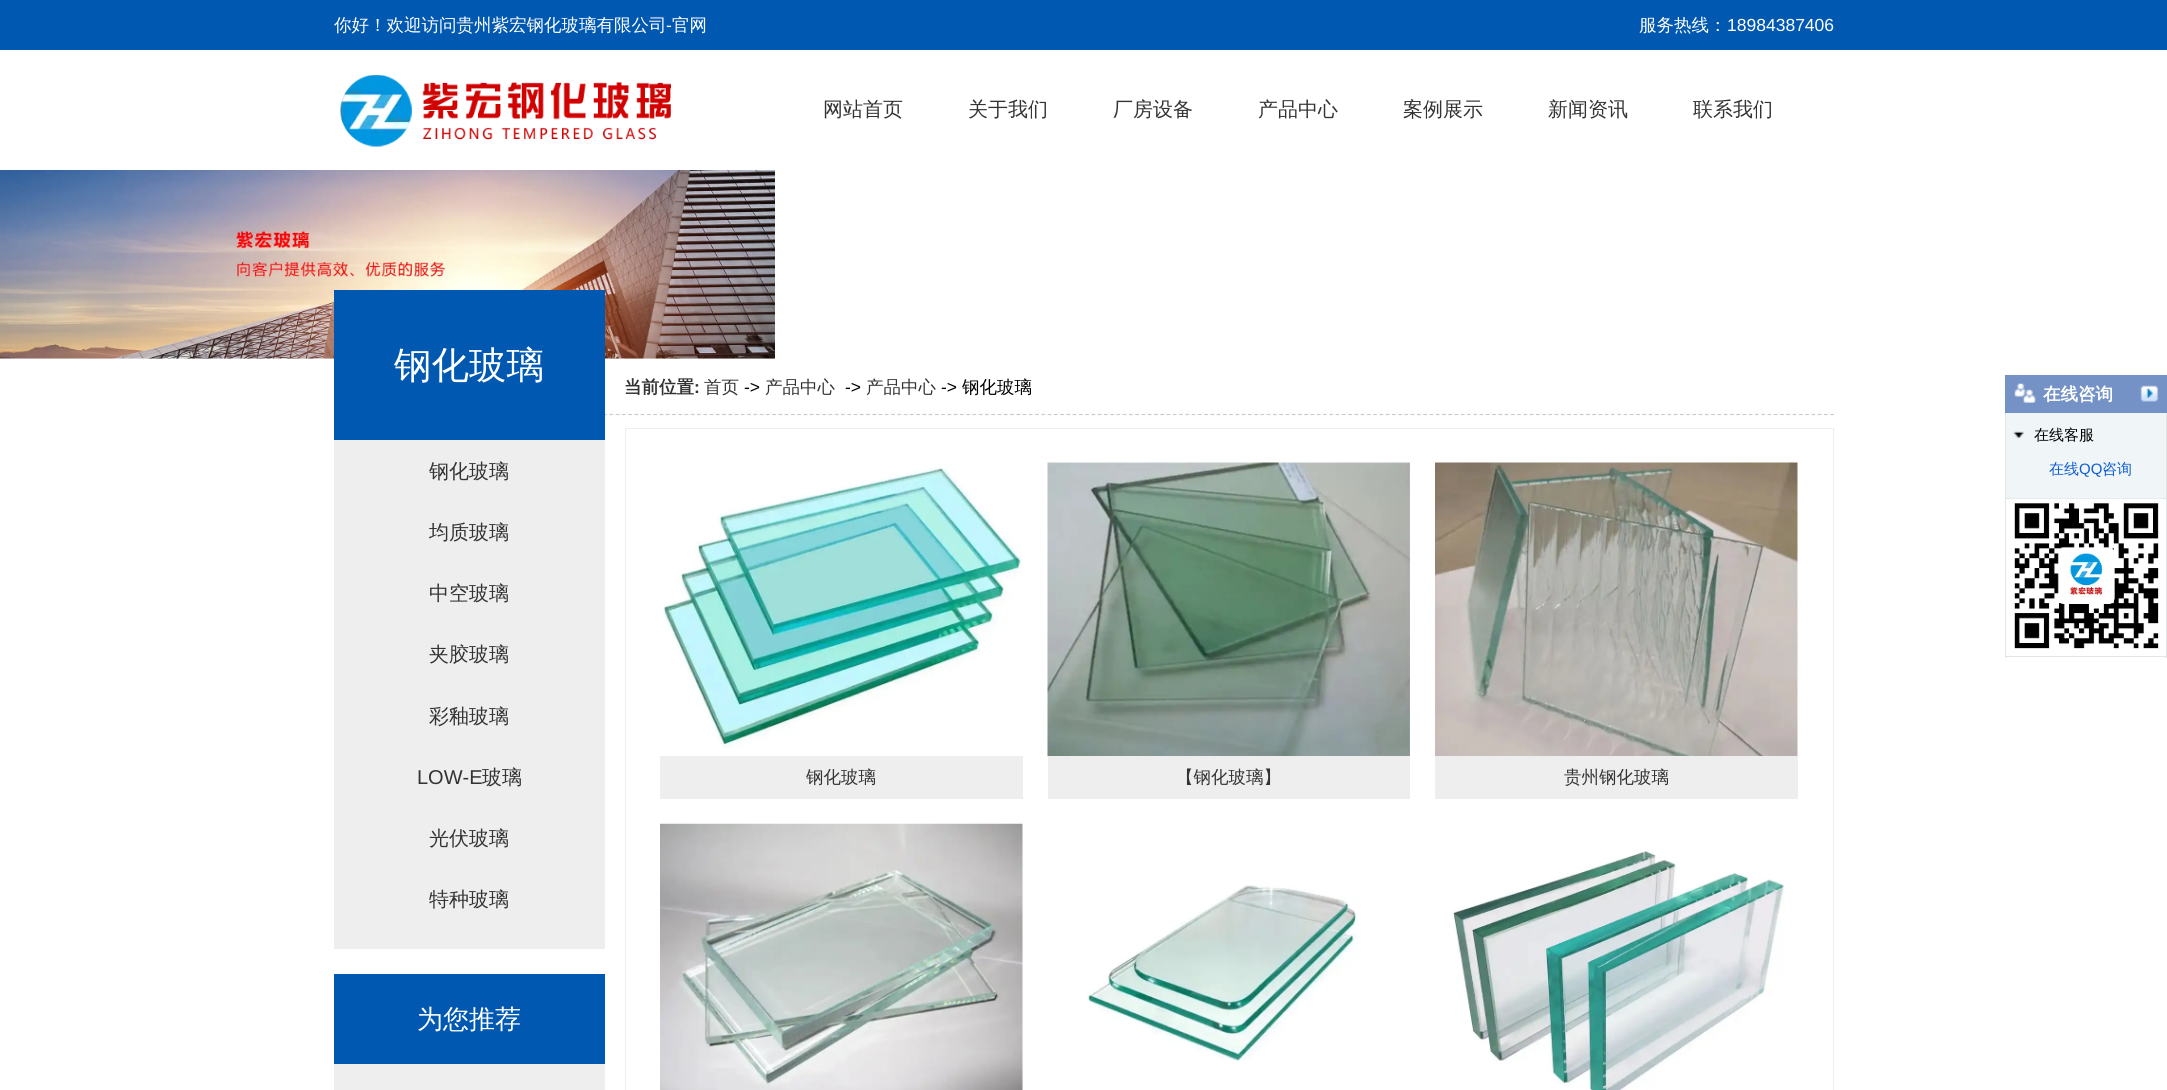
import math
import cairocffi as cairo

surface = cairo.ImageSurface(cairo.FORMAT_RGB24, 2167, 1090)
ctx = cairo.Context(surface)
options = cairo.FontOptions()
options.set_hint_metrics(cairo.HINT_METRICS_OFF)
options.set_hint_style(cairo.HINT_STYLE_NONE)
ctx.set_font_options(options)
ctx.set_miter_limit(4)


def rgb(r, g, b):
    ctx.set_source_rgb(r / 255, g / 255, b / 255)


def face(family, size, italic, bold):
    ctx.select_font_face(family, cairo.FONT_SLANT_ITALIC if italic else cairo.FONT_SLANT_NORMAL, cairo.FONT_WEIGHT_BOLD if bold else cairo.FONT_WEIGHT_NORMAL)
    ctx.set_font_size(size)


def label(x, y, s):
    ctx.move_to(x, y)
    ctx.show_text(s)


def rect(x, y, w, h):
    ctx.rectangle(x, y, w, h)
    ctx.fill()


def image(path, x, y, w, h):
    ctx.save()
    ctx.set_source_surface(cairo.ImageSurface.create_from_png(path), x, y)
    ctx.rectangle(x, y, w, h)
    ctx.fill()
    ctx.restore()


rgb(255, 255, 255)
ctx.paint()
rgb(0, 88, 177)
rect(0, 0, 2167, 50)
face('WenQuanYi Zen Hei Medium', 17.5, 0, 0)
rgb(255, 255, 255)
label(334, 31, '你好！欢迎访问贵州紫宏钢化玻璃有限公司')
face('Liberation Sans', 17.5, 0, 0)
label(666, 31, '-')
face('WenQuanYi Zen Hei Medium', 17.5, 0, 0)
label(672, 31, '官网')
label(1639, 31, '服务热线：')
face('Liberation Sans', 17.5, 0, 0)
label(1727, 31, '18984387406')
image('image0.png', 340, 75, 331, 72)
face('WenQuanYi Zen Hei Medium', 20, 0, 0)
rgb(51, 51, 51)
label(823, 116, '网站首页')
label(968, 116, '关于我们')
label(1113, 116, '厂房设备')
label(1258, 116, '产品中心')
label(1403, 116, '案例展示')
label(1548, 116, '新闻资讯')
label(1693, 116, '联系我们')
image('image1.png', 0, 170, 775, 189)
rgb(238, 238, 238)
rect(334, 440, 271, 509)
ctx.new_path()
ctx.move_to(334, 414.5)
ctx.line_to(1834, 414.5)
rgb(204, 204, 204)
ctx.set_line_width(1.2)
ctx.set_dash([3.75, 2.51])
ctx.stroke()
rgb(0, 88, 177)
rect(334, 290, 271, 150)
face('WenQuanYi Zen Hei Medium', 37.5, 0, 0)
rgb(255, 255, 255)
label(394, 378, '钢化玻璃')
face('WenQuanYi Zen Hei Medium', 20, 0, 0)
rgb(51, 51, 51)
label(429, 478, '钢化玻璃')
label(429, 539, '均质玻璃')
label(429, 600, '中空玻璃')
label(429, 661, '夹胶玻璃')
label(429, 723, '彩釉玻璃')
face('Liberation Sans', 20, 0, 0)
label(417, 784, 'LOW-E')
face('WenQuanYi Zen Hei Medium', 20, 0, 0)
label(482, 784, '玻璃')
label(429, 845, '光伏玻璃')
label(429, 906, '特种玻璃')
rgb(238, 238, 238)
rect(334, 1064, 271, 26)
rgb(0, 88, 177)
rect(334, 974, 271, 90)
face('WenQuanYi Zen Hei Medium', 26, 0, 0)
rgb(255, 255, 255)
label(417, 1028, '为您推荐')
face('WenQuanYi Zen Hei', 17.5, 0, 1)
rgb(51, 51, 51)
label(624, 393, '当前位置')
face('Liberation Sans', 17.5, 0, 1)
label(694, 393, ':')
face('WenQuanYi Zen Hei Medium', 17.5, 0, 0)
label(704, 393, '首页')
face('Liberation Sans', 17.5, 0, 0)
rgb(0, 0, 0)
label(744, 393, '->')
face('WenQuanYi Zen Hei Medium', 17.5, 0, 0)
rgb(51, 51, 51)
label(765, 393, '产品中心')
face('Liberation Sans', 17.5, 0, 0)
rgb(0, 0, 0)
label(845, 393, '->')
face('WenQuanYi Zen Hei Medium', 17.5, 0, 0)
rgb(51, 51, 51)
label(866, 393, '产品中心')
face('Liberation Sans', 17.5, 0, 0)
rgb(0, 0, 0)
label(941, 393, '->')
face('WenQuanYi Zen Hei Medium', 17.5, 0, 0)
label(962, 393, '钢化玻璃')
ctx.rectangle(625.5, 428.5, 1208, 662)
rgb(238, 238, 238)
ctx.set_line_width(1)
ctx.set_dash([])
ctx.stroke()
image('image2.png', 663, 463, 359, 286)
rect(660, 756, 363, 43)
rgb(51, 51, 51)
label(806, 783, '钢化玻璃')
image('image3.png', 1047, 462, 363, 295)
rgb(238, 238, 238)
rect(1048, 756, 362, 43)
rgb(51, 51, 51)
label(1176, 783, '【钢化玻璃】')
image('image4.png', 1435, 462, 363, 294)
rgb(238, 238, 238)
rect(1435, 756, 363, 43)
rgb(51, 51, 51)
label(1564, 783, '贵州钢化玻璃')
image('image5.png', 660, 823, 363, 267)
image('image6.png', 1087, 885, 272, 177)
image('image7.png', 1452, 851, 333, 239)
rgb(116, 146, 197)
rect(2005, 375, 162, 38)
image('image8.png', 2014, 383, 22, 20)
face('WenQuanYi Zen Hei', 17.5, 0, 1)
rgb(255, 255, 255)
label(2043, 400, '在线咨询')
image('image9.png', 2140, 385, 18, 17)
rgb(240, 245, 248)
rect(2006, 413, 160, 85)
rgb(226, 229, 230)
rect(2166, 413, 1, 245)
rect(2005, 498, 162, 1)
rect(2005, 413, 1, 86)
image('image10.png', 2013, 431, 11, 7)
face('WenQuanYi Zen Hei Medium', 15, 0, 0)
rgb(0, 0, 0)
label(2034, 440, '在线客服')
rgb(15, 93, 211)
label(2049, 474, '在线')
face('Liberation Sans', 15, 0, 0)
label(2079, 474, 'QQ')
face('WenQuanYi Zen Hei Medium', 15, 0, 0)
label(2102, 474, '咨询')
rgb(226, 229, 230)
rect(2005, 656, 162, 1)
rect(2005, 499, 1, 159)
image('image11.png', 2010, 498, 153, 151)
surface.write_to_png('render.png')
